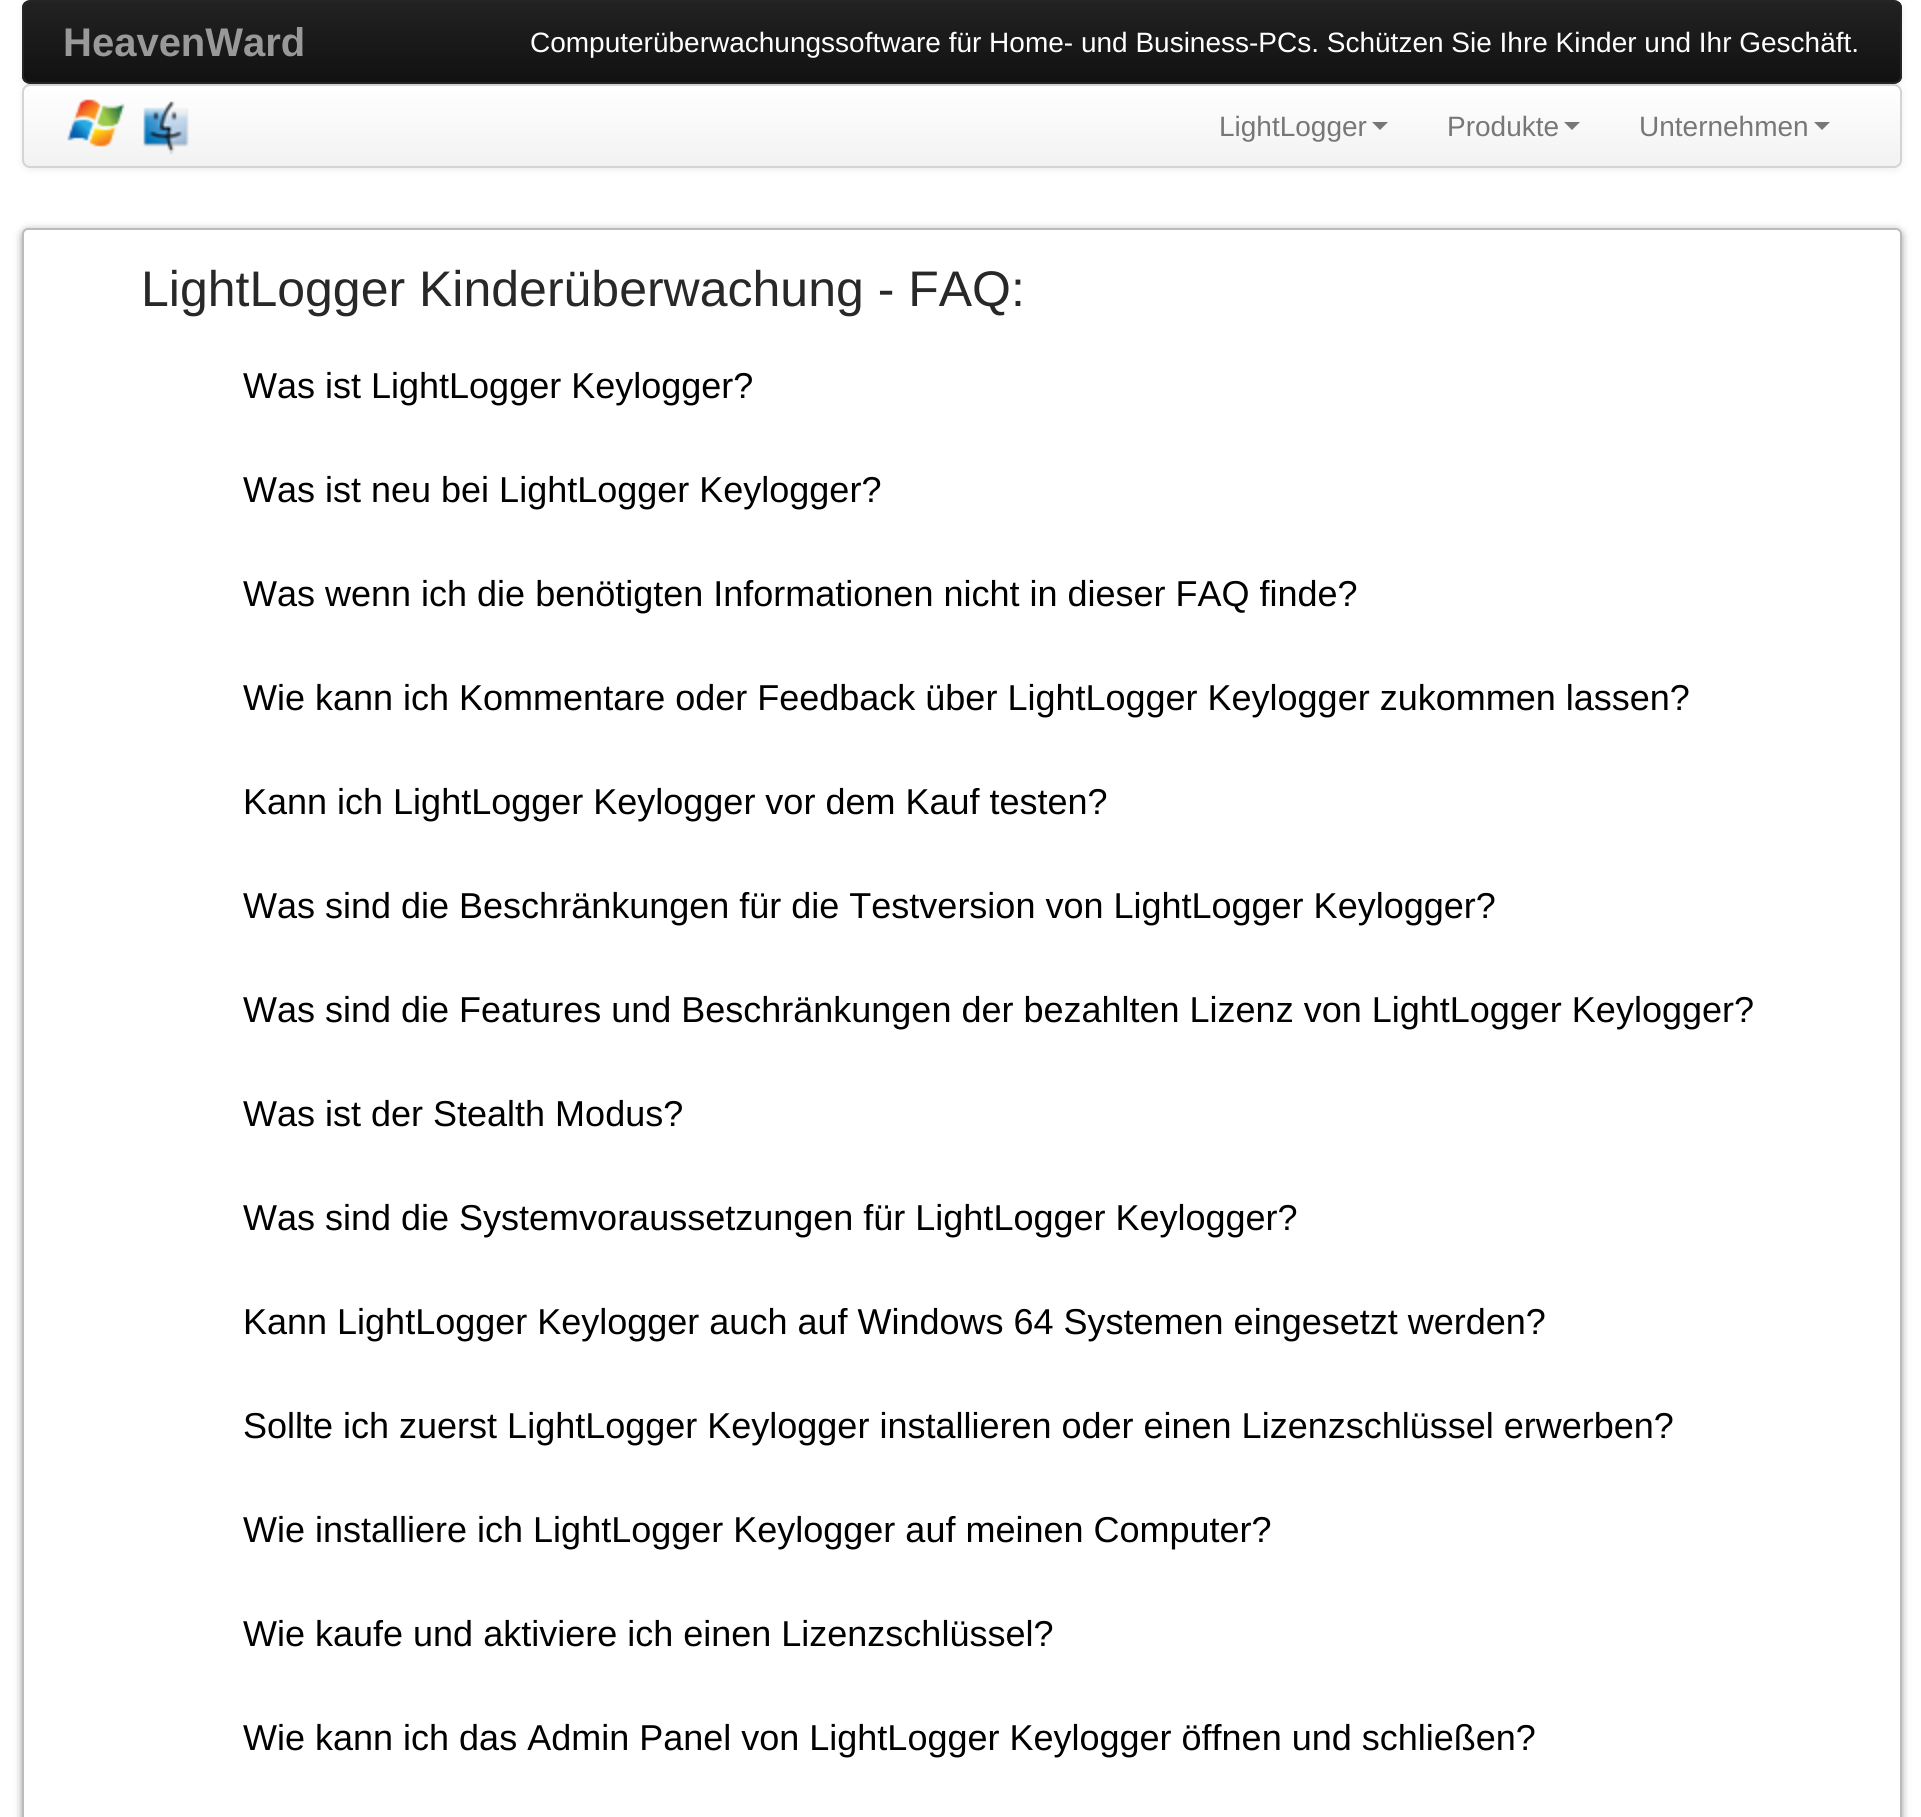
import math
import cairocffi as cairo

surface = cairo.ImageSurface(cairo.FORMAT_RGB24, 1921, 1817)
ctx = cairo.Context(surface)
options = cairo.FontOptions()
options.set_hint_metrics(cairo.HINT_METRICS_OFF)
options.set_hint_style(cairo.HINT_STYLE_NONE)
ctx.set_font_options(options)
ctx.set_miter_limit(4)


def rgb(r, g, b):
    ctx.set_source_rgb(r / 255, g / 255, b / 255)


def face(family, size, italic, bold):
    ctx.select_font_face(family, cairo.FONT_SLANT_ITALIC if italic else cairo.FONT_SLANT_NORMAL, cairo.FONT_WEIGHT_BOLD if bold else cairo.FONT_WEIGHT_NORMAL)
    ctx.set_font_size(size)


def label(x, y, s):
    ctx.move_to(x, y)
    ctx.show_text(s)


def rect(x, y, w, h):
    ctx.rectangle(x, y, w, h)
    ctx.fill()


def rrect(x, y, w, h, r):
    ctx.new_sub_path()
    for i, (u, v) in enumerate([(x + w - r, y + h - r), (x + r, y + h - r), (x + r, y + r), (x + w - r, y + r)]):
        ctx.arc(u, v, r, i * math.pi / 2, (i + 1) * math.pi / 2)
    ctx.close_path()


def soft_shadow(x, y, w, h, r, blur, alpha):
    ctx.push_group_with_content(cairo.CONTENT_ALPHA)
    ctx.set_operator(cairo.OPERATOR_SOURCE)
    for i in range(15, -16, -2):
        e = blur * i / 6
        if min(w, h) + 2 * e > 0:
            ctx.set_source_rgba(0, 0, 0, alpha * math.erfc((i - 1) / 8.5) / 2)
            rrect(x - e, y - e, w + 2 * e, h + 2 * e, max(0, min(r + e + blur * .6, min(w, h) / 2 + e)))
            ctx.fill()
    ctx.mask(ctx.pop_group())


def image(path, x, y, w, h):
    ctx.save()
    ctx.set_source_surface(cairo.ImageSurface.create_from_png(path), x, y)
    ctx.rectangle(x, y, w, h)
    ctx.fill()
    ctx.restore()


rgb(255, 255, 255)
ctx.paint()
rgb(0, 0, 0)
soft_shadow(22, 2, 1880, 84, 8, 4, 0.07)
ctx.save()
rrect(22, 0, 1880, 84, 8)
ctx.clip()
gradient = cairo.LinearGradient(962, 2, 962, 82)
gradient.add_color_stop_rgba(0, 0.133, 0.133, 0.133, 1)
gradient.add_color_stop_rgba(1, 0.067, 0.067, 0.067, 1)
ctx.set_source(gradient)
rect(22, 2, 1880, 80)
ctx.restore()
rrect(23, 1, 1878, 82, 7)
rgb(37, 37, 37)
ctx.stroke()
face('Liberation Sans', 40, 0, 1)
rgb(153, 153, 153)
label(63, 56, 'HeavenWard')
face('Liberation Sans', 28, 0, 0)
rgb(255, 255, 255)
label(530, 52, 'Computerüberwachungssoftware für Home- und Business-PCs. Schützen Sie Ihre Kinder und Ihr Geschäft.')
rgb(0, 0, 0)
soft_shadow(22, 86, 1880, 84, 8, 4, 0.07)
ctx.save()
rrect(22, 84, 1880, 84, 8)
ctx.clip()
gradient = cairo.LinearGradient(962, 86, 962, 166)
gradient.add_color_stop_rgba(0, 1, 1, 1, 1)
gradient.add_color_stop_rgba(1, 0.949, 0.949, 0.949, 1)
ctx.set_source(gradient)
rect(22, 86, 1880, 80)
ctx.restore()
rrect(23, 85, 1878, 82, 7)
rgb(212, 212, 212)
ctx.stroke()
image('image0.png', 67, 99, 58, 48)
image('image1.png', 143, 101, 46, 54)
rgb(119, 119, 119)
label(1219, 136, 'LightLogger')
ctx.new_path()
ctx.move_to(1372, 122)
ctx.line_to(1388, 122)
ctx.line_to(1380, 130)
ctx.close_path()
ctx.fill()
label(1447, 136, 'Produkte')
ctx.new_path()
ctx.move_to(1564, 122)
ctx.line_to(1580, 122)
ctx.line_to(1572, 130)
ctx.close_path()
ctx.fill()
label(1639, 136, 'Unternehmen')
ctx.new_path()
ctx.move_to(1814, 122)
ctx.line_to(1830, 122)
ctx.line_to(1822, 130)
ctx.close_path()
ctx.fill()
rgb(0, 0, 0)
soft_shadow(22, 230, 1880, 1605, 6, 4, 0.4)
rgb(255, 255, 255)
rrect(26, 232, 1872, 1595, 2)
ctx.fill_preserve()
ctx.set_line_width(8)
ctx.stroke()
rrect(23, 229, 1878, 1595, 5)
rgb(187, 187, 187)
ctx.set_line_width(2)
ctx.stroke()
face('Liberation Sans', 50, 0, 0)
rgb(40, 40, 40)
label(141, 306, 'LightLogger Kinderüberwachung - FAQ:')
face('Liberation Sans', 36, 0, 0)
rgb(0, 0, 0)
label(243, 398, 'Was ist LightLogger Keylogger?')
label(243, 502, 'Was ist neu bei LightLogger Keylogger?')
label(243, 606, 'Was wenn ich die benötigten Informationen nicht in dieser FAQ finde?')
label(243, 710, 'Wie kann ich Kommentare oder Feedback über LightLogger Keylogger zukommen lassen?')
label(243, 814, 'Kann ich LightLogger Keylogger vor dem Kauf testen?')
label(243, 918, 'Was sind die Beschränkungen für die Testversion von LightLogger Keylogger?')
label(243, 1022, 'Was sind die Features und Beschränkungen der bezahlten Lizenz von LightLogger Keylogger?')
label(243, 1126, 'Was ist der Stealth Modus?')
label(243, 1230, 'Was sind die Systemvoraussetzungen für LightLogger Keylogger?')
label(243, 1334, 'Kann LightLogger Keylogger auch auf Windows 64 Systemen eingesetzt werden?')
label(243, 1438, 'Sollte ich zuerst LightLogger Keylogger installieren oder einen Lizenzschlüssel erwerben?')
label(243, 1542, 'Wie installiere ich LightLogger Keylogger auf meinen Computer?')
label(243, 1646, 'Wie kaufe und aktiviere ich einen Lizenzschlüssel?')
label(243, 1750, 'Wie kann ich das Admin Panel von LightLogger Keylogger öffnen und schließen?')
surface.write_to_png('render.png')
